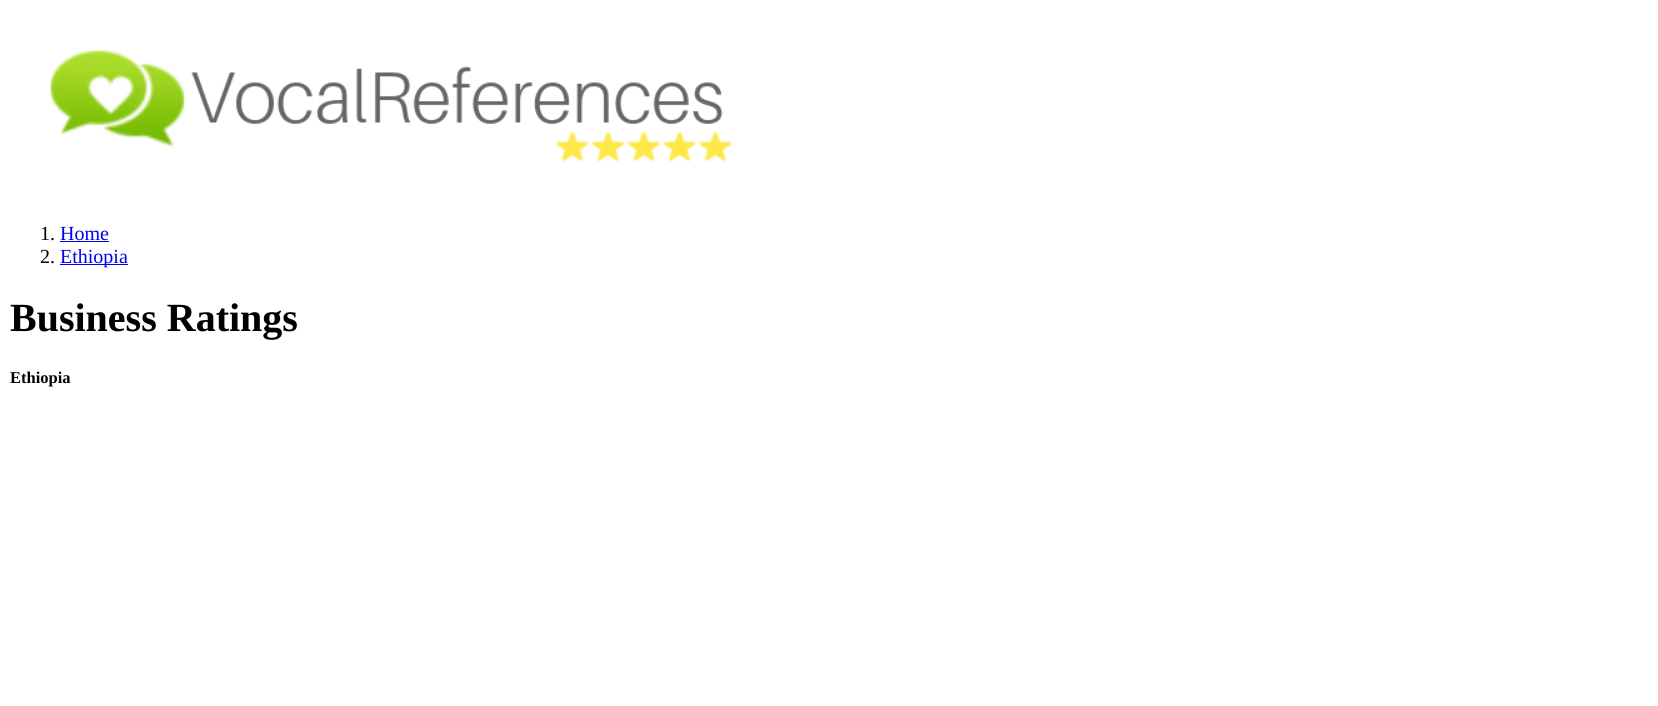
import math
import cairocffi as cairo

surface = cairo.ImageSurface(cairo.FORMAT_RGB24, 1658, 706)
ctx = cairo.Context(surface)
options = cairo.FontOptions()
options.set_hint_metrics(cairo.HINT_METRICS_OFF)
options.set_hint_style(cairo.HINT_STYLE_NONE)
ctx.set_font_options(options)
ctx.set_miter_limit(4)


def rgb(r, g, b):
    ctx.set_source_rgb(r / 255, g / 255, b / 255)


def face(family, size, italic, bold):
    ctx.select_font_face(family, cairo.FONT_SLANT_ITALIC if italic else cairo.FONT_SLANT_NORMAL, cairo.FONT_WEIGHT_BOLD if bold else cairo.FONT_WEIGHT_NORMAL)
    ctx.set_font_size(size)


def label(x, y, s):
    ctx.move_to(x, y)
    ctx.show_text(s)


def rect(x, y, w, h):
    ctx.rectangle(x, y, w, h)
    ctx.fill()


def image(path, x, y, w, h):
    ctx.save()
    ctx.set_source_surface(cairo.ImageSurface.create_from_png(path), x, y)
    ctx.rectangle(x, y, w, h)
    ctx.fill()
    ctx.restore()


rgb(255, 255, 255)
ctx.paint()
image('image0.png', 50, 50, 683, 112)
face('Liberation Serif', 20, 0, 0)
rgb(0, 0, 0)
label(40, 240, '1.')
rgb(0, 0, 238)
label(60, 240, 'Home')
rect(60, 241, 49, 1)
rgb(0, 0, 0)
label(40, 263, '2.')
rgb(0, 0, 238)
rect(60, 264, 68, 1)
label(60, 263, 'Ethiopia')
face('Liberation Serif', 40, 0, 1)
rgb(0, 0, 0)
label(10, 331, 'Business Ratings')
face('Liberation Serif', 16.5, 0, 1)
label(10, 383, 'Ethiopia')
surface.write_to_png('render.png')
